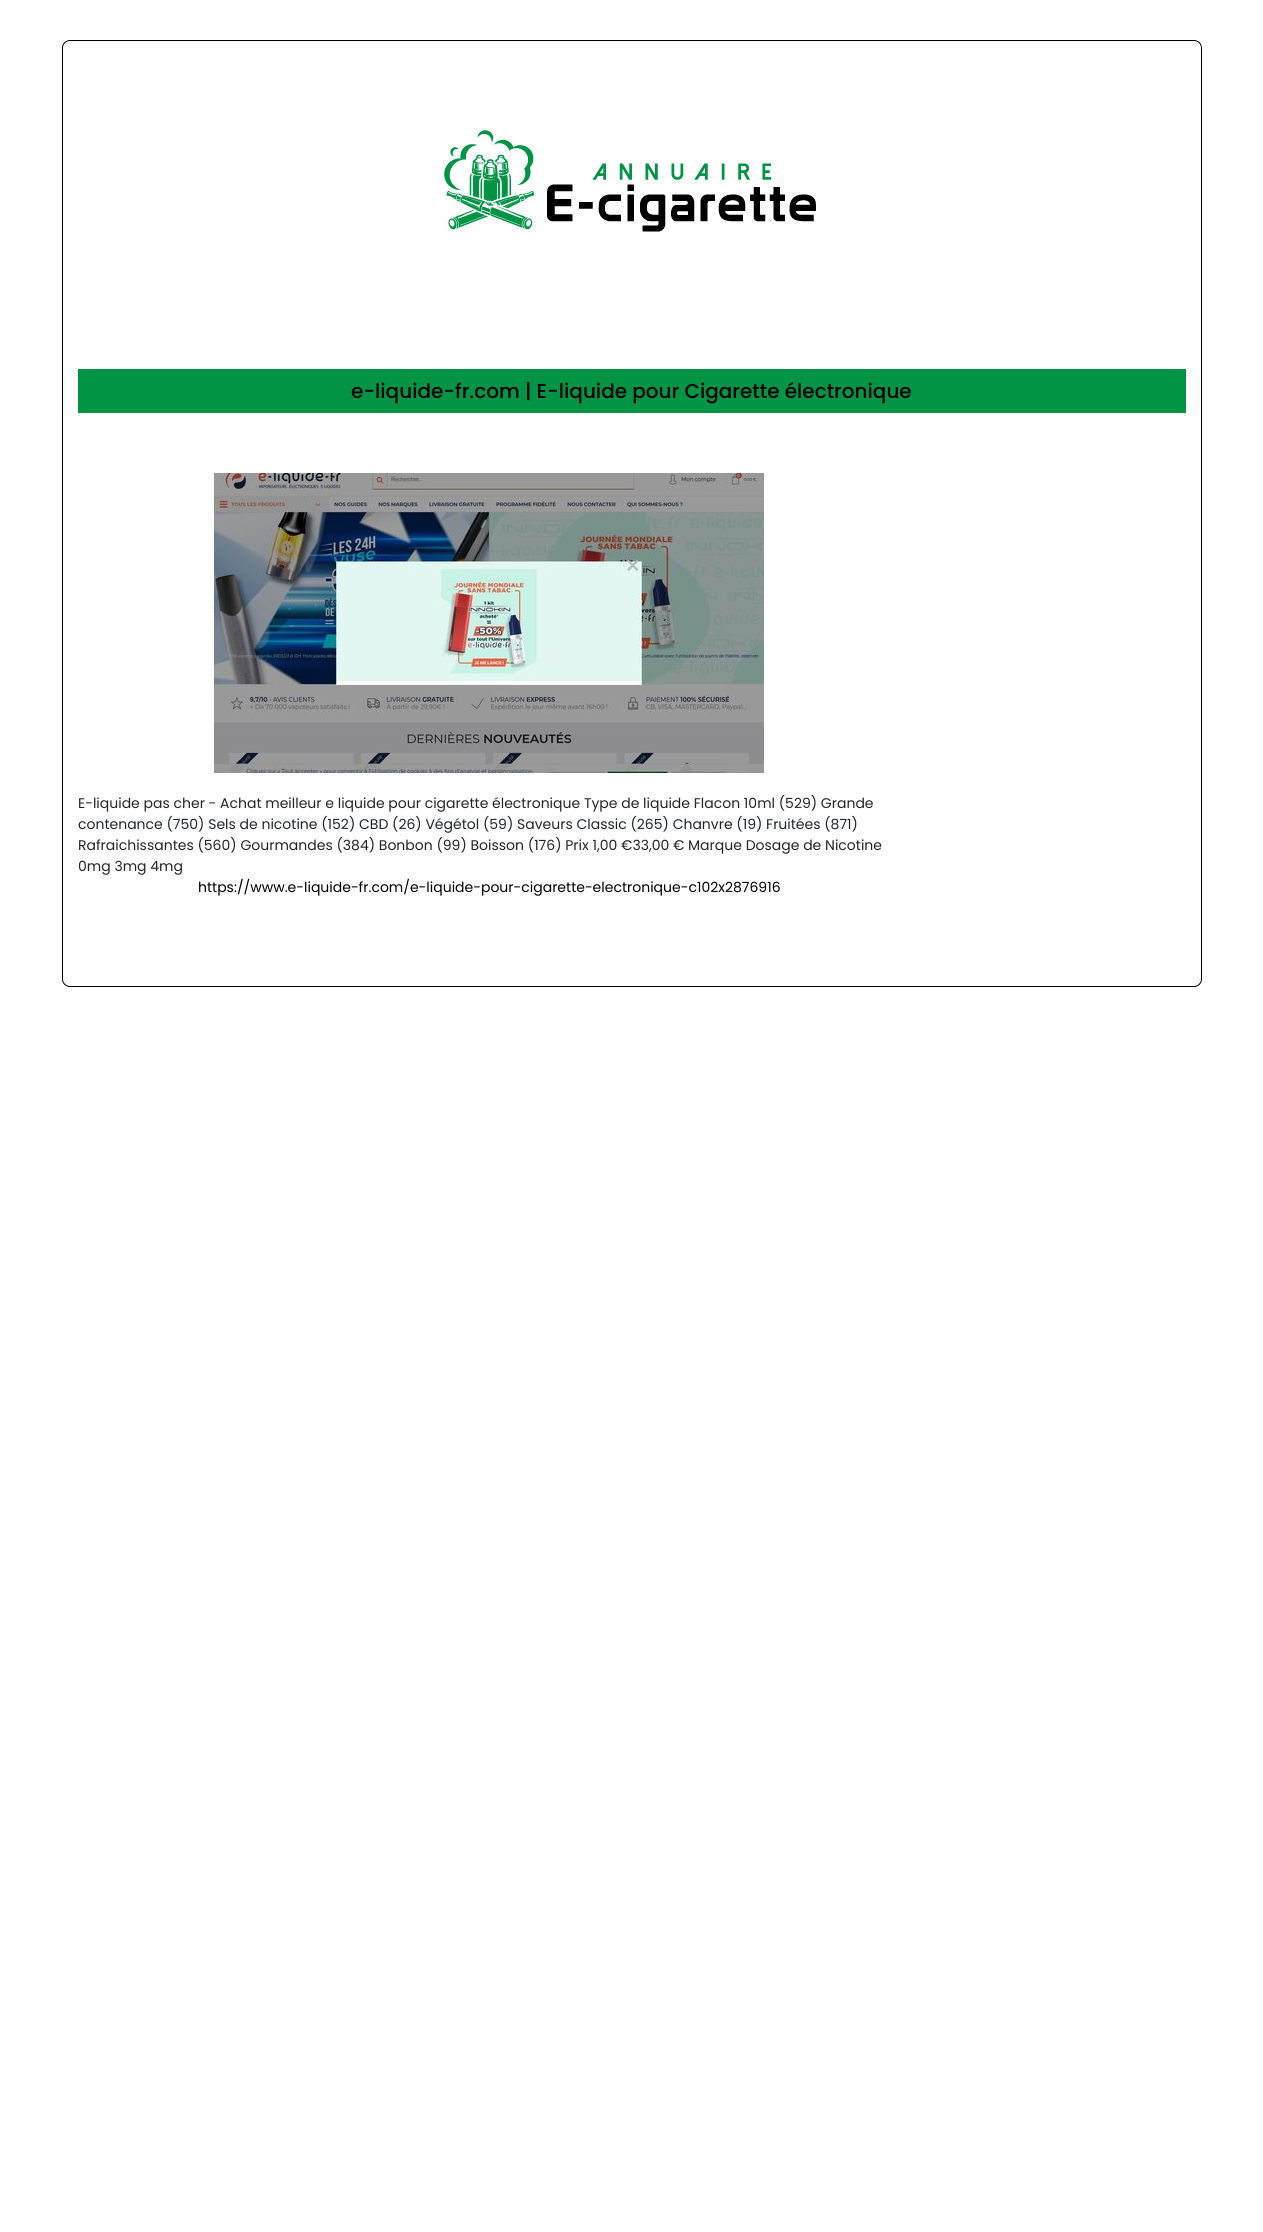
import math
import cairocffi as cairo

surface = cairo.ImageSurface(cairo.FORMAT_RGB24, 1263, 2232)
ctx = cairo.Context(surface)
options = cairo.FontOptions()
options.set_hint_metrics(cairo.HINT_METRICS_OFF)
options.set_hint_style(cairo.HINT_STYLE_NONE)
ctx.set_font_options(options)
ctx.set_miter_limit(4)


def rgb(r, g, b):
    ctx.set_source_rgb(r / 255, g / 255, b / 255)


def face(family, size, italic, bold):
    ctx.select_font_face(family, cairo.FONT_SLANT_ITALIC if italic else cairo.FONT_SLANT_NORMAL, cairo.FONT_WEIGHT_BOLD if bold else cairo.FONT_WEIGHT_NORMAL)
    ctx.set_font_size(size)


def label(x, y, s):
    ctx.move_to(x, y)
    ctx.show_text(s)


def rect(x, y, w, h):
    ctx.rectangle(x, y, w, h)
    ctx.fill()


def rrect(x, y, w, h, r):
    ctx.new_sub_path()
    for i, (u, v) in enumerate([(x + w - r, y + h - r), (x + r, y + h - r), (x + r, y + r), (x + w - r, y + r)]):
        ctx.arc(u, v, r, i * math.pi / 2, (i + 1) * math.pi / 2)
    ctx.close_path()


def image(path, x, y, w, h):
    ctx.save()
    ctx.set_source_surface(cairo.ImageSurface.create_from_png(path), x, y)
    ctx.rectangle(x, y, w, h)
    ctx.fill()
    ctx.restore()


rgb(255, 255, 255)
ctx.paint()
rrect(62.5, 40.5, 1139, 946, 7.5)
rgb(0, 0, 0)
ctx.set_line_width(1)
ctx.stroke()
image('image0.png', 444, 130, 372, 102)
rgb(0, 148, 68)
rect(78, 369, 1108, 44)
face('Poppins Medium', 20, 0, 0)
rgb(0, 0, 0)
label(351, 398, 'e-liquide-fr.com | E-liquide pour Cigarette électronique')
image('image1.png', 214, 473, 550, 300)
face('Poppins', 14, 0, 0)
rgb(33, 37, 41)
label(78, 808, 'E-liquide pas cher - Achat meilleur e liquide pour cigarette électronique Type de liquide Flacon 10ml (529) Grande')
label(78, 829, 'contenance (750) Sels de nicotine (152) CBD (26) Végétol (59) Saveurs Classic (265) Chanvre (19) Fruitées (871)')
label(78, 850, 'Rafraichissantes (560) Gourmandes (384) Bonbon (99) Boisson (176) Prix 1,00 €33,00 € Marque Dosage de Nicotine')
label(78, 871, '0mg 3mg 4mg')
rgb(0, 0, 0)
label(198, 892, 'https://www.e-liquide-fr.com/e-liquide-pour-cigarette-electronique-c102x2876916')
surface.write_to_png('render.png')
